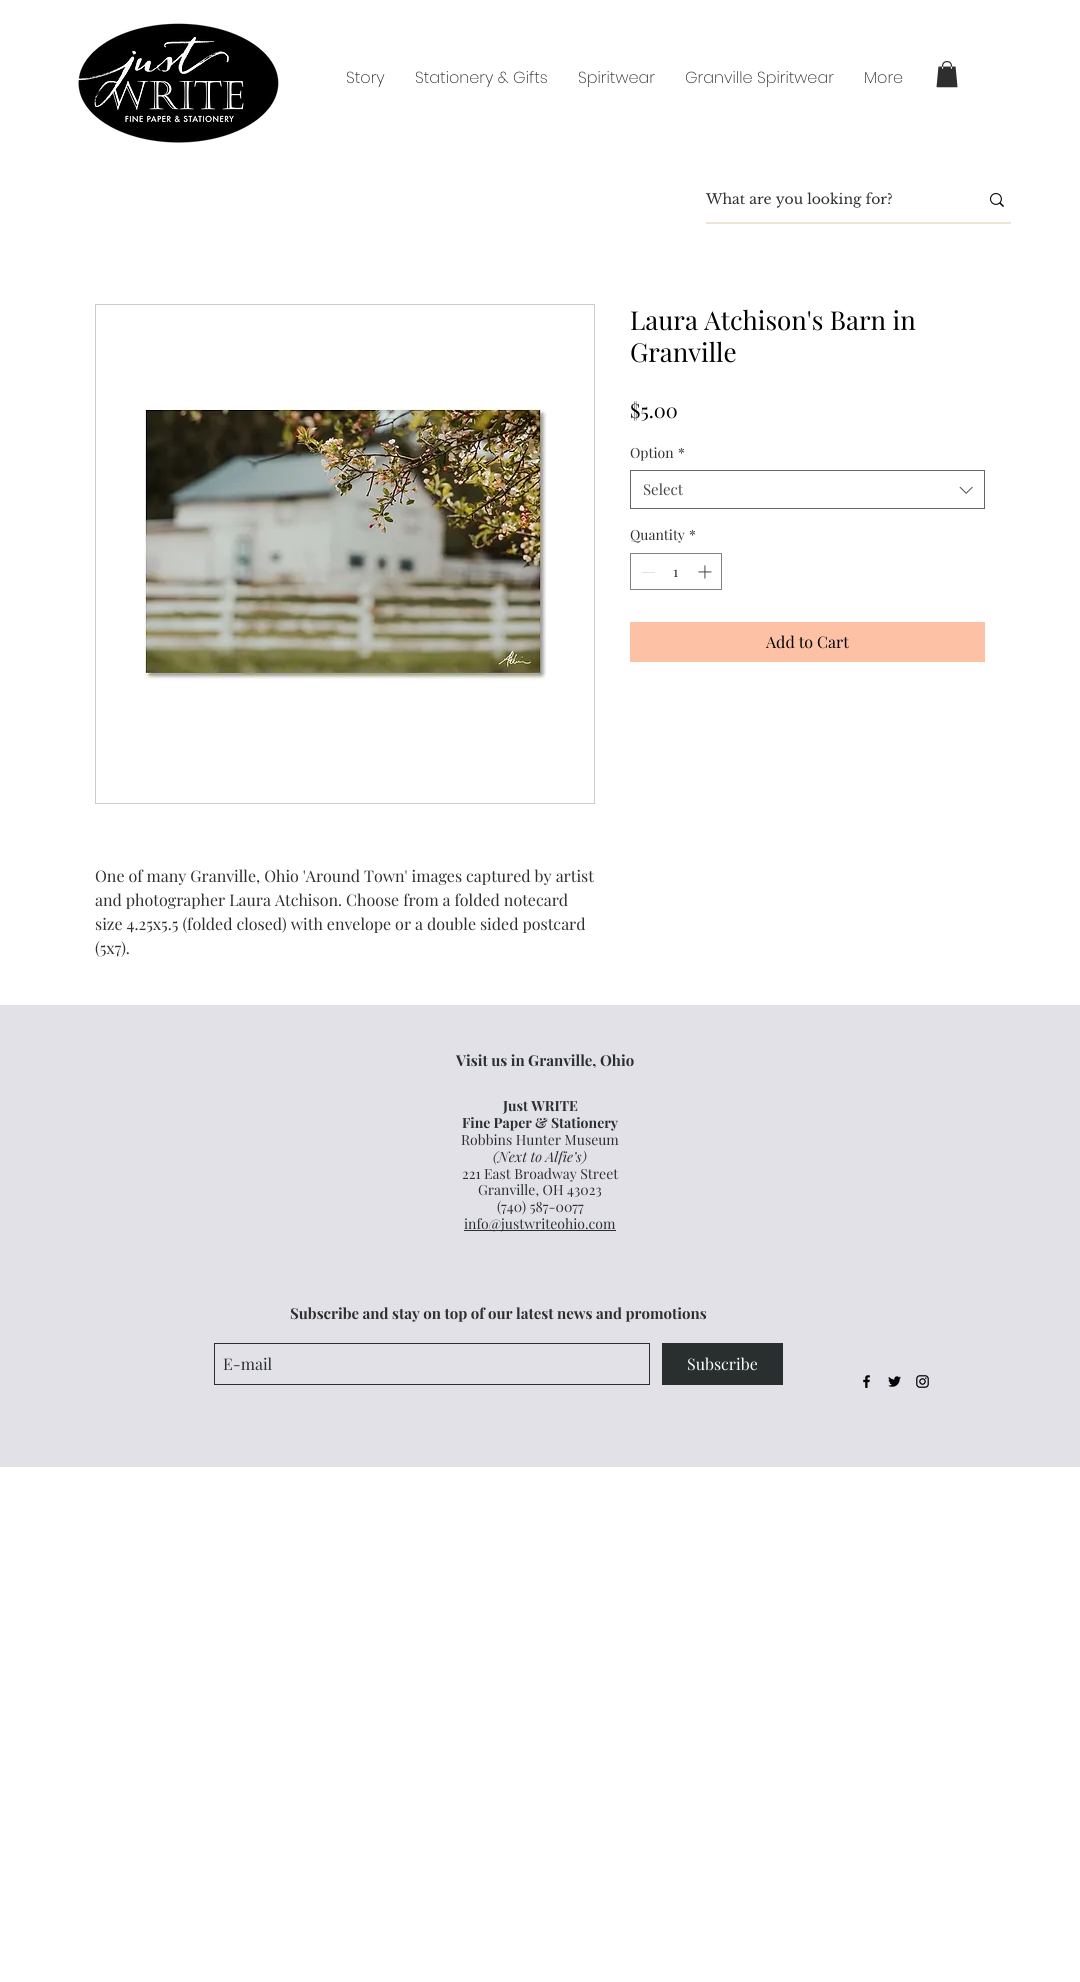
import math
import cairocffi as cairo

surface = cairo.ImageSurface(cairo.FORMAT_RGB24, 1080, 1982)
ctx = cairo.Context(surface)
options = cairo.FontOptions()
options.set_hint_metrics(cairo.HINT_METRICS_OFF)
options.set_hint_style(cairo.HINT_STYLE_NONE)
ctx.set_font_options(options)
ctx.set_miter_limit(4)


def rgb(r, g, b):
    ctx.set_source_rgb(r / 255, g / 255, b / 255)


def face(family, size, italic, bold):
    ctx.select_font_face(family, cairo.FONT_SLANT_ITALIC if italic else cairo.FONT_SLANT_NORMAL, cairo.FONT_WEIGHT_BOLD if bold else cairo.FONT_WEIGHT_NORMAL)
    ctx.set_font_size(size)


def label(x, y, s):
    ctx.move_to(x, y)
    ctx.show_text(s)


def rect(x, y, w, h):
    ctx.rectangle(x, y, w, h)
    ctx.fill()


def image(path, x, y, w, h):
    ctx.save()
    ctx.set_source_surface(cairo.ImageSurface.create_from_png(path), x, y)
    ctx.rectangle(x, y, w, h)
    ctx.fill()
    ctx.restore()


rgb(255, 255, 255)
ctx.paint()
image('image0.png', 76, 23, 203, 120)
face('Poppins ExtraLight', 16, 0, 0)
rgb(47, 46, 46)
label(346, 83, 'Story')
label(415, 83, 'Stationery & Gifts')
label(578, 83, 'Spiritwear')
label(685, 83, 'Granville Spiritwear')
label(864, 83, 'More')
image('image1.png', 936, 61, 22, 27)
rgb(235, 229, 214)
rect(706, 222, 305, 2)
face('Libre Baskerville', 14, 0, 0)
rgb(47, 46, 46)
label(706, 204, 'What are you looking for?')
image('image2.png', 990, 193, 14, 14)
face('Playfair Display', 26, 0, 0)
rgb(0, 0, 0)
label(630, 330, 'Laura Atchison\'s Barn in')
label(630, 362, 'Granville')
face('Playfair Display', 20, 0, 0)
label(630, 418, '$5.00')
face('Playfair Display', 14, 0, 0)
rgb(47, 46, 46)
label(630, 458, 'Option')
label(678, 458, '*')
ctx.rectangle(630.5, 470.5, 354, 38)
rgb(102, 102, 102)
ctx.set_line_width(1)
ctx.stroke()
face('Playfair Display', 15, 0, 0)
rgb(68, 68, 68)
label(643, 495, 'Select')
image('image3.png', 959, 486, 14, 8)
face('Playfair Display', 14, 0, 0)
rgb(47, 46, 46)
label(630, 540, 'Quantity')
label(689, 540, '*')
ctx.rectangle(630.5, 553.5, 91, 36)
rgb(130, 130, 130)
ctx.stroke()
rgb(227, 227, 227)
rect(642, 572, 13, 1)
rgb(47, 46, 46)
label(673, 577, '1')
image('image4.png', 698, 565, 14, 14)
rgb(253, 194, 166)
rect(630, 622, 355, 40)
face('Playfair Display', 16, 0, 0)
rgb(0, 0, 0)
label(766, 648, 'Add to Cart')
ctx.rectangle(95.5, 304.5, 499, 499)
rgb(204, 204, 204)
ctx.stroke()
image('image5.png', 143, 406, 404, 274)
rgb(47, 46, 46)
label(95, 882, 'One of many Granville, Ohio \'Around Town\' images captured by artist')
label(95, 906, 'and photographer Laura Atchison. Choose from a folded notecard')
label(95, 930, 'size 4.25x5.5 (folded closed) with envelope or a double sided postcard')
label(95, 954, '(5x7).')
rgb(227, 225, 232)
rect(0, 1005, 1080, 462)
face('Playfair Display', 15, 0, 1)
rgb(41, 47, 47)
label(456, 1066, 'Visit us in Granville, Ohio')
face('Playfair Display', 14, 0, 1)
label(503, 1111, 'Just WRITE')
label(462, 1128, 'Fine Paper & Stationery')
face('Playfair Display', 14, 0, 0)
label(461, 1145, 'Robbins Hunter Museum')
face('Playfair Display', 14, 1, 0)
label(493, 1162, '(Next to Alfie’s)')
face('Playfair Display', 14, 0, 0)
label(462, 1179, '221 East Broadway Street')
label(478, 1195, 'Granville, OH 43023')
label(497, 1212, '(740) 587-0077')
rect(464, 1230, 152, 1)
label(464, 1229, 'info@justwriteohio.com')
face('Playfair Display', 15, 0, 1)
rgb(47, 46, 46)
label(290, 1319, 'Subscribe and stay on top of our latest news and promotions')
ctx.rectangle(214.5, 1343.5, 435, 41)
ctx.stroke()
face('Playfair Display', 16, 0, 0)
rgb(41, 47, 47)
label(223, 1370, 'E-mail')
rect(662, 1343, 121, 42)
rgb(255, 255, 255)
label(687, 1370, 'Subscribe')
image('image6.png', 863, 1375, 7, 13)
image('image7.png', 888, 1376, 13, 11)
image('image8.png', 916, 1375, 13, 13)
surface.write_to_png('render.png')
